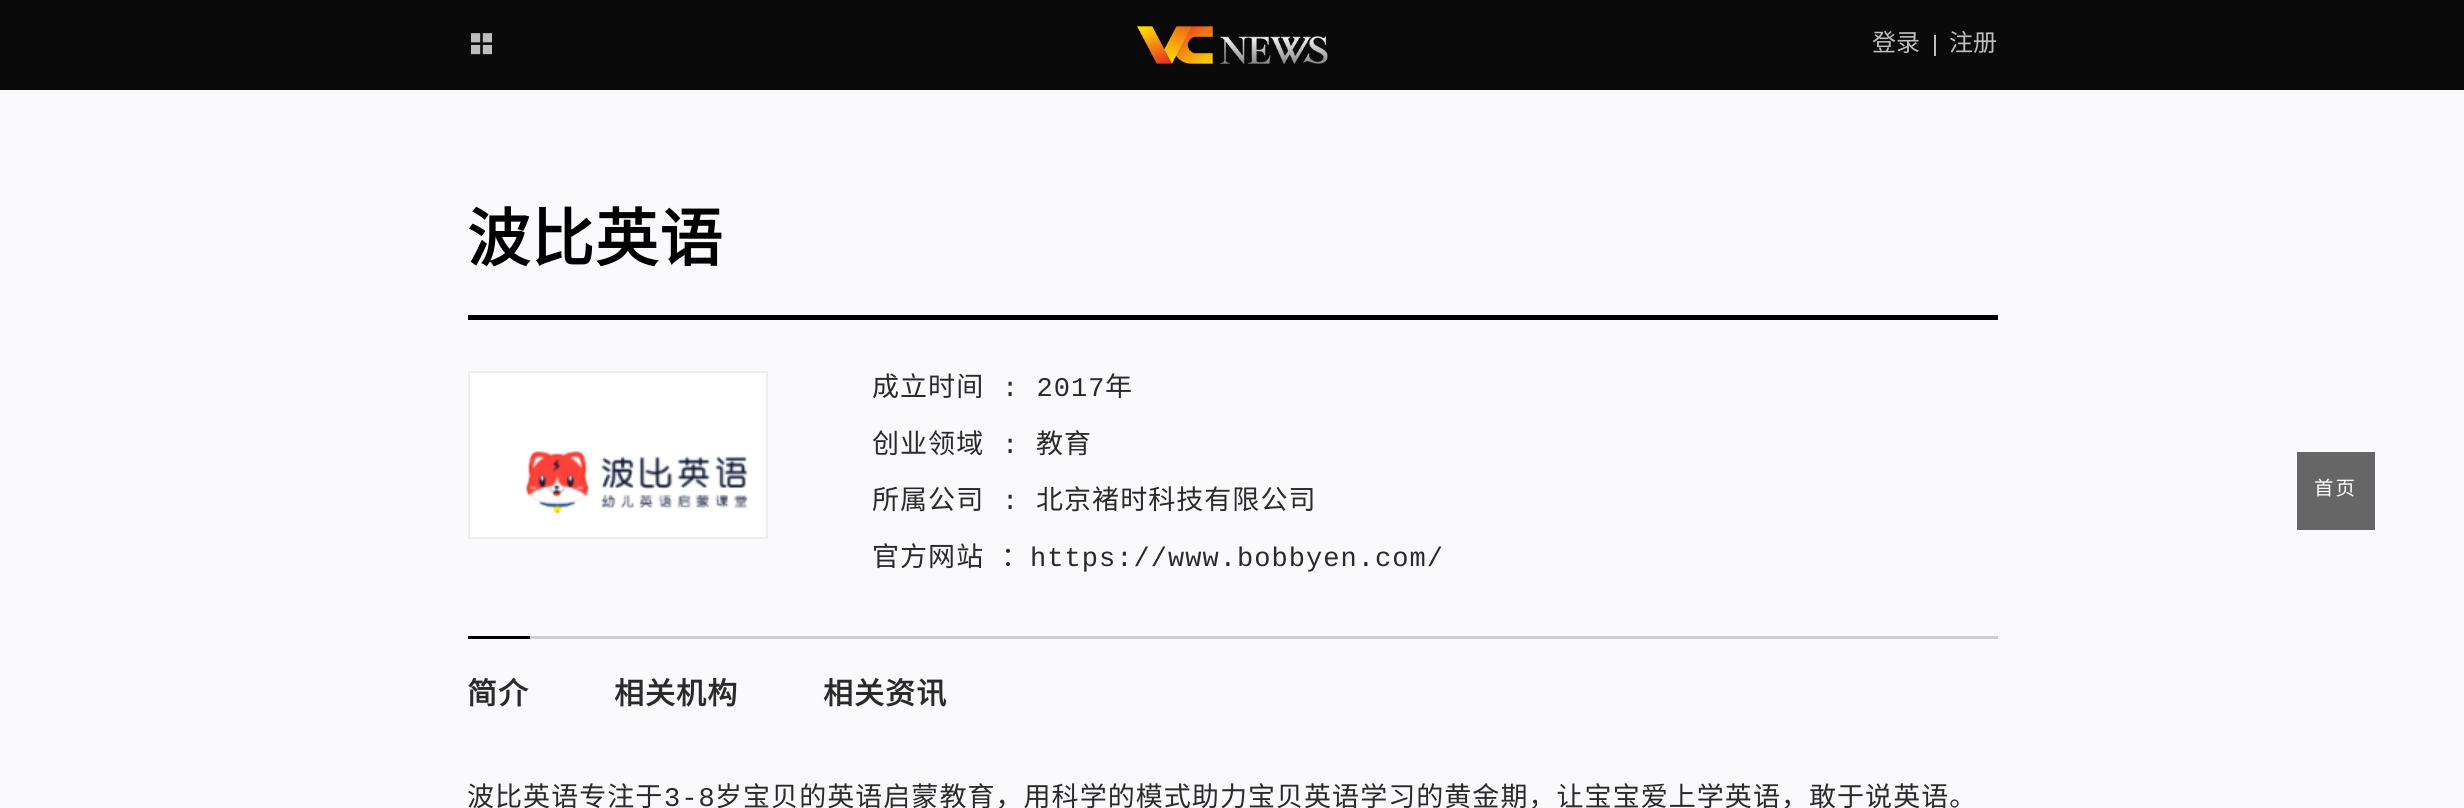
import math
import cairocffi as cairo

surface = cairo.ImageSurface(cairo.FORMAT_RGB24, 2464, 808)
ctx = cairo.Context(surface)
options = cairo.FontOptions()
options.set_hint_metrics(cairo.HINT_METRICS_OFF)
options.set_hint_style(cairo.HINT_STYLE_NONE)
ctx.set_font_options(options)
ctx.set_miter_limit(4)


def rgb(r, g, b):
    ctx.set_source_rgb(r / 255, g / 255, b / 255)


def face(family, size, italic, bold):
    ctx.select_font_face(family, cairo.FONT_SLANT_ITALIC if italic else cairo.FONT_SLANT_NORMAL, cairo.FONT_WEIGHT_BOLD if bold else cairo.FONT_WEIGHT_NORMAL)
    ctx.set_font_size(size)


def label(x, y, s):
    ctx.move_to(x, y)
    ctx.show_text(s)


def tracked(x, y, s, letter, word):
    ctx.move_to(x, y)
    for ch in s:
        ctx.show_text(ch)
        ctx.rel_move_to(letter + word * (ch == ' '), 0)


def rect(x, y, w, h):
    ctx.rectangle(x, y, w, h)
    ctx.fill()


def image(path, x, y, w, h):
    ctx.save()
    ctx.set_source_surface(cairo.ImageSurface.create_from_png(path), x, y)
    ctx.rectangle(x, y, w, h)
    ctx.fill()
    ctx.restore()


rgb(250, 250, 252)
ctx.paint()
rgb(10, 10, 10)
rect(0, 0, 2464, 90)
image('image0.png', 471, 33, 21, 22)
image('image1.png', 1137, 26, 191, 38)
face('Noto Sans CJK SC', 24, 0, 0)
rgb(190, 190, 190)
label(1872, 51, '登录')
rect(1934, 35, 2, 21)
label(1949, 51, '注册')
rgb(0, 0, 0)
rect(468, 315, 1530, 5)
face('Noto Sans CJK SC', 63, 0, 1)
tracked(467, 261, '波比英语', 1.05, 0)
rgb(255, 255, 255)
ctx.rectangle(469, 372, 298, 166)
ctx.fill_preserve()
rgb(238, 238, 238)
ctx.stroke()
image('image2.png', 525, 451, 223, 63)
face('Noto Sans CJK SC', 27, 0, 0)
rgb(42, 42, 42)
tracked(872, 396, '成立时间', 1.05, 0)
face('Liberation Mono', 27, 0, 0)
tracked(1002, 396, ': 2017', 1.05, 0)
face('Noto Sans CJK SC', 27, 0, 0)
tracked(1105, 396, '年', 1.05, 0)
tracked(872, 453, '创业领域', 1.05, 0)
face('Liberation Mono', 27, 0, 0)
tracked(1002, 453, ':', 1.05, 0)
face('Noto Sans CJK SC', 27, 0, 0)
tracked(1036, 453, '教育', 1.05, 0)
tracked(872, 509, '所属公司', 1.05, 0)
face('Liberation Mono', 27, 0, 0)
tracked(1002, 509, ':', 1.05, 0)
face('Noto Sans CJK SC', 27, 0, 0)
tracked(1036, 509, '北京褚时科技有限公司', 1.05, 0)
tracked(872, 566, '官方网站 ：', 1.05, 10)
face('Liberation Mono', 27, 0, 0)
tracked(1030, 566, 'https://www.bobbyen.com/', 1.05, 0)
rgb(102, 102, 102)
rect(2297, 452, 78, 78)
face('Noto Sans CJK SC', 19.5, 0, 0)
rgb(255, 255, 255)
tracked(2314, 495, '首页', 2, 0)
rgb(206, 206, 208)
rect(530, 636, 1468, 3)
rgb(0, 0, 0)
rect(468, 636, 62, 3)
face('Noto Sans CJK SC', 30, 0, 1)
rgb(42, 42, 42)
tracked(467, 704, '简介', 1.05, 0)
tracked(614, 704, '相关机构', 1.05, 0)
tracked(823, 704, '相关资讯', 1.05, 0)
face('Noto Sans CJK SC', 27, 0, 0)
tracked(467, 806, '波比英语专注于', 1.05, 0)
face('Liberation Mono', 27, 0, 0)
tracked(664, 806, '3-8', 1.05, 0)
face('Noto Sans CJK SC', 27, 0, 0)
tracked(715, 806, '岁宝贝的英语启蒙教育，用科学的模式助力宝贝英语学习的黄金期，让宝宝爱上学英语，敢于说英语。', 1.05, 0)
surface.write_to_png('render.png')
